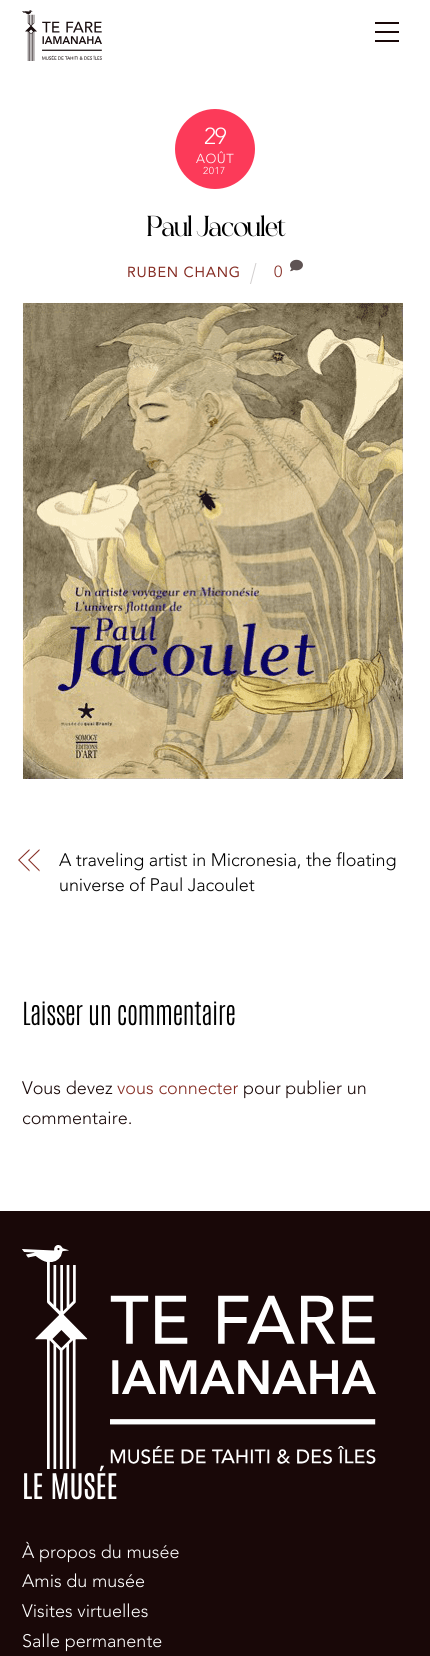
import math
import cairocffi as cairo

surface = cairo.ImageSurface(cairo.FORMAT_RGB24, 430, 1656)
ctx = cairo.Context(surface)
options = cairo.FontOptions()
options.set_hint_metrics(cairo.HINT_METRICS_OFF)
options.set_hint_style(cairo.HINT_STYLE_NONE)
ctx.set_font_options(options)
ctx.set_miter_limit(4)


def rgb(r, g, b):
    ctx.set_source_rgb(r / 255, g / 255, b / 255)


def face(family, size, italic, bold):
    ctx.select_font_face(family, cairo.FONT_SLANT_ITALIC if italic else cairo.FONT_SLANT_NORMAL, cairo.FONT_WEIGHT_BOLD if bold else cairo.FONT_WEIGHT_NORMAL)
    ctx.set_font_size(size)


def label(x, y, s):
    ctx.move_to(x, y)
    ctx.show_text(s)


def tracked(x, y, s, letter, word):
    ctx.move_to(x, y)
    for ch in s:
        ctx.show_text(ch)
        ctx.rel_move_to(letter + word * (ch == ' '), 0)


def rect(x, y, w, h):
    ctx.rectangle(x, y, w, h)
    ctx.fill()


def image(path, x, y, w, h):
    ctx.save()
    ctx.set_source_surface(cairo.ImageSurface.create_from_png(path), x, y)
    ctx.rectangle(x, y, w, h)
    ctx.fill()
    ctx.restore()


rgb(255, 255, 255)
ctx.paint()
image('image0.png', 22, 10, 80, 51)
rgb(25, 8, 8)
rect(375, 40, 24, 2)
rect(375, 22, 24, 2)
rect(375, 31, 24, 2)
rgb(252, 58, 89)
ctx.arc(215, 149, 40, 0, 2 * math.pi)
ctx.fill()
face('Avenir Light', 23, 0, 0)
rgb(255, 255, 255)
tracked(204, 144, '29', -1.1, 0)
face('Avenir Light', 13, 0, 0)
tracked(196, 163, 'AOÛT', 0.5, 0)
face('Avenir Light', 10, 0, 0)
tracked(203, 174, '2017', 0.5, 0)
face('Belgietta', 29, 0, 0)
rgb(0, 0, 0)
tracked(146, 236, 'Paul Jacoulet', -1.1, 0)
face('Avenir', 14.5, 0, 0)
rgb(133, 44, 35)
tracked(127, 277, 'RUBEN CHANG', 0.75, 0)
rgb(209, 206, 206)
ctx.new_path()
ctx.move_to(255.5, 263)
ctx.line_to(256.5, 263)
ctx.line_to(251, 284)
ctx.line_to(250, 284)
ctx.close_path()
ctx.fill()
face('Avenir Light', 16, 0, 0)
rgb(133, 44, 35)
label(274, 277, '0')
image('image1.png', 290, 259, 13, 13)
image('image2.png', 22, 302, 381, 477)
ctx.new_path()
ctx.move_to(18, 860)
ctx.line_to(29.5, 849)
ctx.line_to(29.5, 850.5)
ctx.line_to(19.5, 860)
ctx.close_path()
ctx.move_to(29.5, 871.5)
ctx.line_to(18, 860)
ctx.line_to(19.5, 860)
ctx.line_to(29.5, 870)
ctx.close_path()
ctx.fill()
ctx.new_path()
ctx.move_to(28, 860)
ctx.line_to(39.5, 849)
ctx.line_to(39.5, 850.5)
ctx.line_to(29.5, 860)
ctx.close_path()
ctx.move_to(39.5, 871.5)
ctx.line_to(28, 860)
ctx.line_to(29.5, 860)
ctx.line_to(39.5, 870)
ctx.close_path()
ctx.fill()
face('Avenir Light', 18, 0, 0)
rgb(0, 0, 0)
tracked(59, 866, 'A traveling artist in Micronesia, the floating', -0.1, 0)
tracked(59, 891, 'universe of Paul Jacoulet', -0.1, 0)
face('Antonio Thin', 27, 0, 0)
tracked(22, 1025, 'Laisser un commentaire', -0.5, 0)
face('Avenir Light', 18, 0, 0)
rgb(25, 8, 8)
label(22, 1094, 'Vous devez')
rgb(133, 44, 35)
label(117, 1094, 'vous connecter')
rgb(25, 8, 8)
label(243, 1094, 'pour publier un')
label(22, 1124, 'commentaire.')
rect(0, 1211, 430, 445)
image('image3.png', 22, 1245, 354, 224)
face('Antonio', 30, 0, 0)
rgb(255, 255, 255)
label(22, 1499, 'LE MUSÉE')
face('Avenir Light', 18, 0, 0)
label(22, 1558, 'À propos du musée')
label(22, 1587, 'Amis du musée')
label(22, 1617, 'Visites virtuelles')
label(22, 1647, 'Salle permanente')
surface.write_to_png('render.png')
